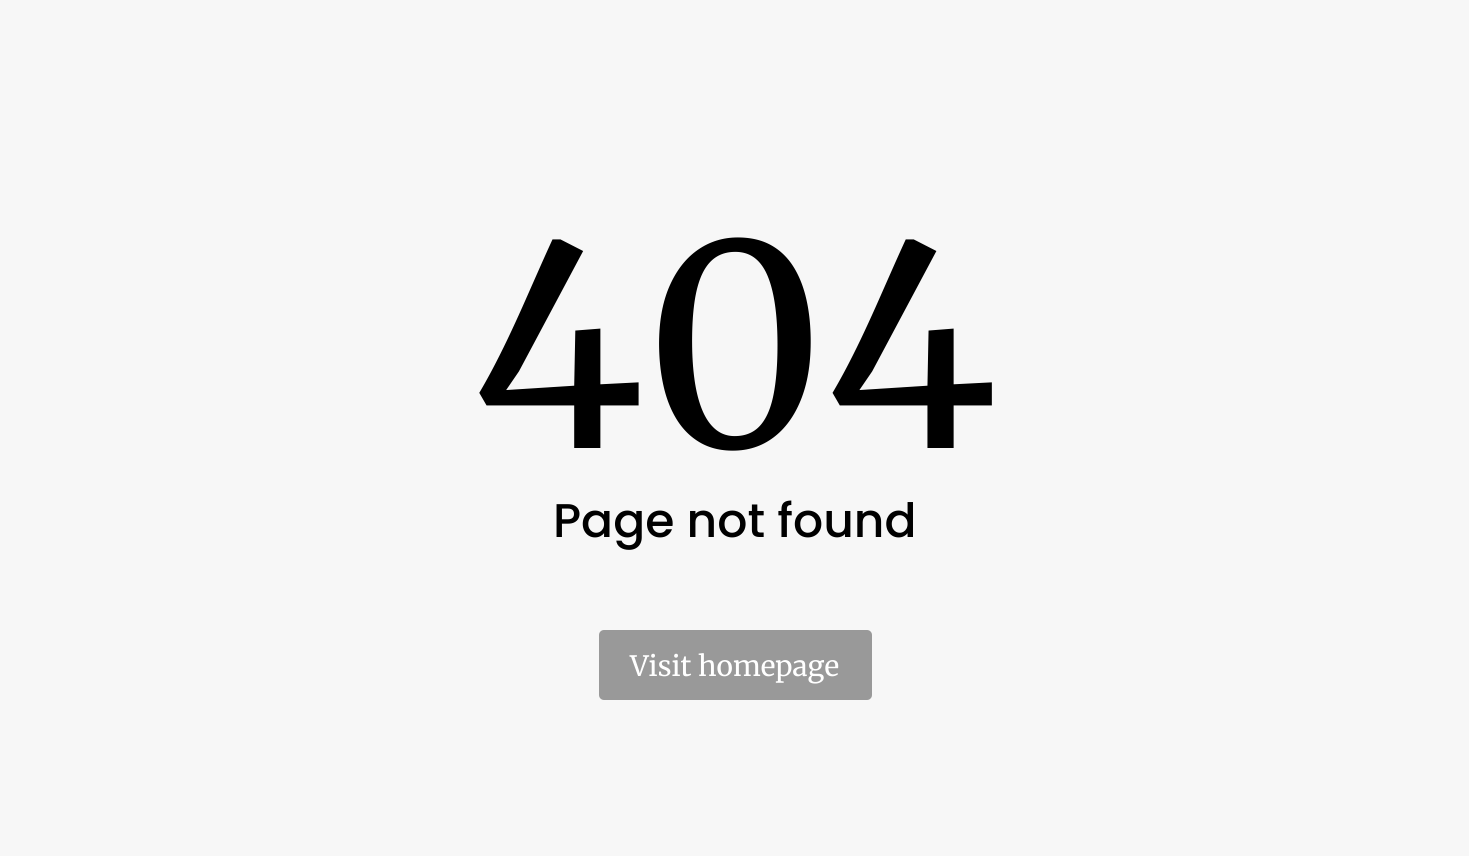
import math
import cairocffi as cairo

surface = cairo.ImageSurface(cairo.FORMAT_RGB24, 1469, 856)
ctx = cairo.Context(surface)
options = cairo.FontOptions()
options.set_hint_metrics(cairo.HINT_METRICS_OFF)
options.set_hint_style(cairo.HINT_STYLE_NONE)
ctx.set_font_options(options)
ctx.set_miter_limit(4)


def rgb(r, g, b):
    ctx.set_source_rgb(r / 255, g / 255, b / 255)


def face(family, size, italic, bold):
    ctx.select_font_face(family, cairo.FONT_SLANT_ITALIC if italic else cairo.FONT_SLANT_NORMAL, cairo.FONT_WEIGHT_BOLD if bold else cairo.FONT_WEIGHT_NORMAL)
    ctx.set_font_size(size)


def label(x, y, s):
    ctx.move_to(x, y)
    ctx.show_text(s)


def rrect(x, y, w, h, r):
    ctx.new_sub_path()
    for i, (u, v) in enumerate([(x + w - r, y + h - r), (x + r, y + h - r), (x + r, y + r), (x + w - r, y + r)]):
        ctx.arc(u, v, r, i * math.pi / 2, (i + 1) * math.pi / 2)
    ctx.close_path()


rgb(247, 247, 247)
ctx.paint()
face('Merriweather', 280, 0, 0)
rgb(0, 0, 0)
label(472, 448, '404')
face('Poppins Medium', 47.25, 0, 0)
label(553, 537, 'Page not found')
rgb(153, 153, 153)
rrect(599, 630, 273, 70, 5)
ctx.fill()
face('Merriweather', 28, 0, 0)
rgb(255, 255, 255)
label(630, 676, 'Visit homepage')
surface.write_to_png('render.png')
